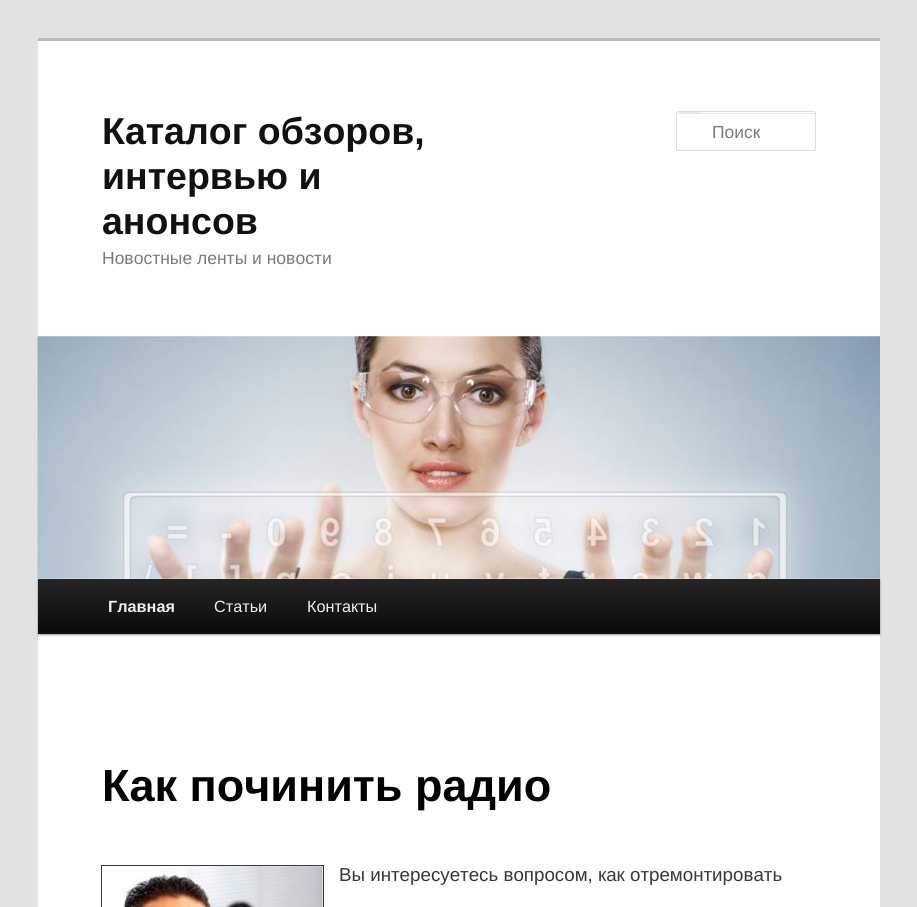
import math
import cairocffi as cairo

surface = cairo.ImageSurface(cairo.FORMAT_RGB24, 917, 907)
ctx = cairo.Context(surface)
options = cairo.FontOptions()
options.set_hint_metrics(cairo.HINT_METRICS_OFF)
options.set_hint_style(cairo.HINT_STYLE_NONE)
ctx.set_font_options(options)
ctx.set_miter_limit(4)


def rgb(r, g, b):
    ctx.set_source_rgb(r / 255, g / 255, b / 255)


def face(family, size, italic, bold):
    ctx.select_font_face(family, cairo.FONT_SLANT_ITALIC if italic else cairo.FONT_SLANT_NORMAL, cairo.FONT_WEIGHT_BOLD if bold else cairo.FONT_WEIGHT_NORMAL)
    ctx.set_font_size(size)


def label(x, y, s):
    ctx.move_to(x, y)
    ctx.show_text(s)


def rect(x, y, w, h):
    ctx.rectangle(x, y, w, h)
    ctx.fill()


def rrect(x, y, w, h, r):
    ctx.new_sub_path()
    for i, (u, v) in enumerate([(x + w - r, y + h - r), (x + r, y + h - r), (x + r, y + r), (x + w - r, y + r)]):
        ctx.arc(u, v, r, i * math.pi / 2, (i + 1) * math.pi / 2)
    ctx.close_path()


def soft_shadow(x, y, w, h, r, blur, alpha):
    ctx.push_group_with_content(cairo.CONTENT_ALPHA)
    ctx.set_operator(cairo.OPERATOR_SOURCE)
    for i in range(15, -16, -2):
        e = blur * i / 6
        if min(w, h) + 2 * e > 0:
            ctx.set_source_rgba(0, 0, 0, alpha * math.erfc((i - 1) / 8.5) / 2)
            rrect(x - e, y - e, w + 2 * e, h + 2 * e, max(0, min(r + e + blur * .6, min(w, h) / 2 + e)))
            ctx.fill()
    ctx.mask(ctx.pop_group())


def image(path, x, y, w, h):
    ctx.save()
    ctx.set_source_surface(cairo.ImageSurface.create_from_png(path), x, y)
    ctx.rectangle(x, y, w, h)
    ctx.fill()
    ctx.restore()


rgb(226, 226, 226)
ctx.paint()
rgb(255, 255, 255)
rect(38, 41, 842, 866)
rgb(187, 187, 187)
rect(38, 38, 842, 3)
face('Liberation Sans', 37.5, 0, 1)
rgb(17, 17, 17)
label(102, 144, 'Каталог обзоров,')
label(102, 189, 'интервью и')
label(102, 234, 'анонсов')
face('Liberation Sans', 17.5, 0, 0)
rgb(122, 122, 122)
label(102, 264, 'Новостные ленты и новости')
rgb(230, 230, 230)
ctx.new_path()
ctx.move_to(679, 114)
ctx.line_to(814, 114)
ctx.line_to(815, 115)
ctx.line_to(815, 113)
ctx.line_to(702, 113)
ctx.curve_to(701, 113, 678, 107, 678, 115)
ctx.curve_to(678, 114, 678, 114, 679, 114)
ctx.close_path()
ctx.fill()
rrect(676.5, 111.5, 139, 39, 2)
rgb(221, 221, 221)
ctx.set_line_width(1)
ctx.stroke()
rgb(122, 122, 122)
label(712, 138, 'Поиск')
rgb(0, 0, 0)
soft_shadow(38, 580, 842, 55, 0, 1, 0.4)
image('image0.png', 37, 336, 843, 243)
gradient = cairo.LinearGradient(459, 579, 459, 634)
gradient.add_color_stop_rgba(0, 0.145, 0.145, 0.145, 1)
gradient.add_color_stop_rgba(1, 0.039, 0.039, 0.039, 1)
ctx.set_source(gradient)
rect(38, 579, 842, 55)
face('Liberation Sans', 16.25, 0, 1)
rgb(238, 238, 238)
label(108, 612, 'Главная')
face('Liberation Sans', 16.25, 0, 0)
label(214, 612, 'Статьи')
label(307, 612, 'Контакты')
face('Liberation Sans', 45, 0, 1)
rgb(0, 0, 0)
label(102, 801, 'Как починить радио')
ctx.rectangle(101.5, 865.5, 222, 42)
rgb(55, 55, 55)
ctx.stroke()
image('image1.png', 123, 866, 200, 41)
face('Liberation Sans', 18.75, 0, 0)
label(339, 881, 'Вы интересуетесь вопросом, как отремонтировать')
surface.write_to_png('render.png')
